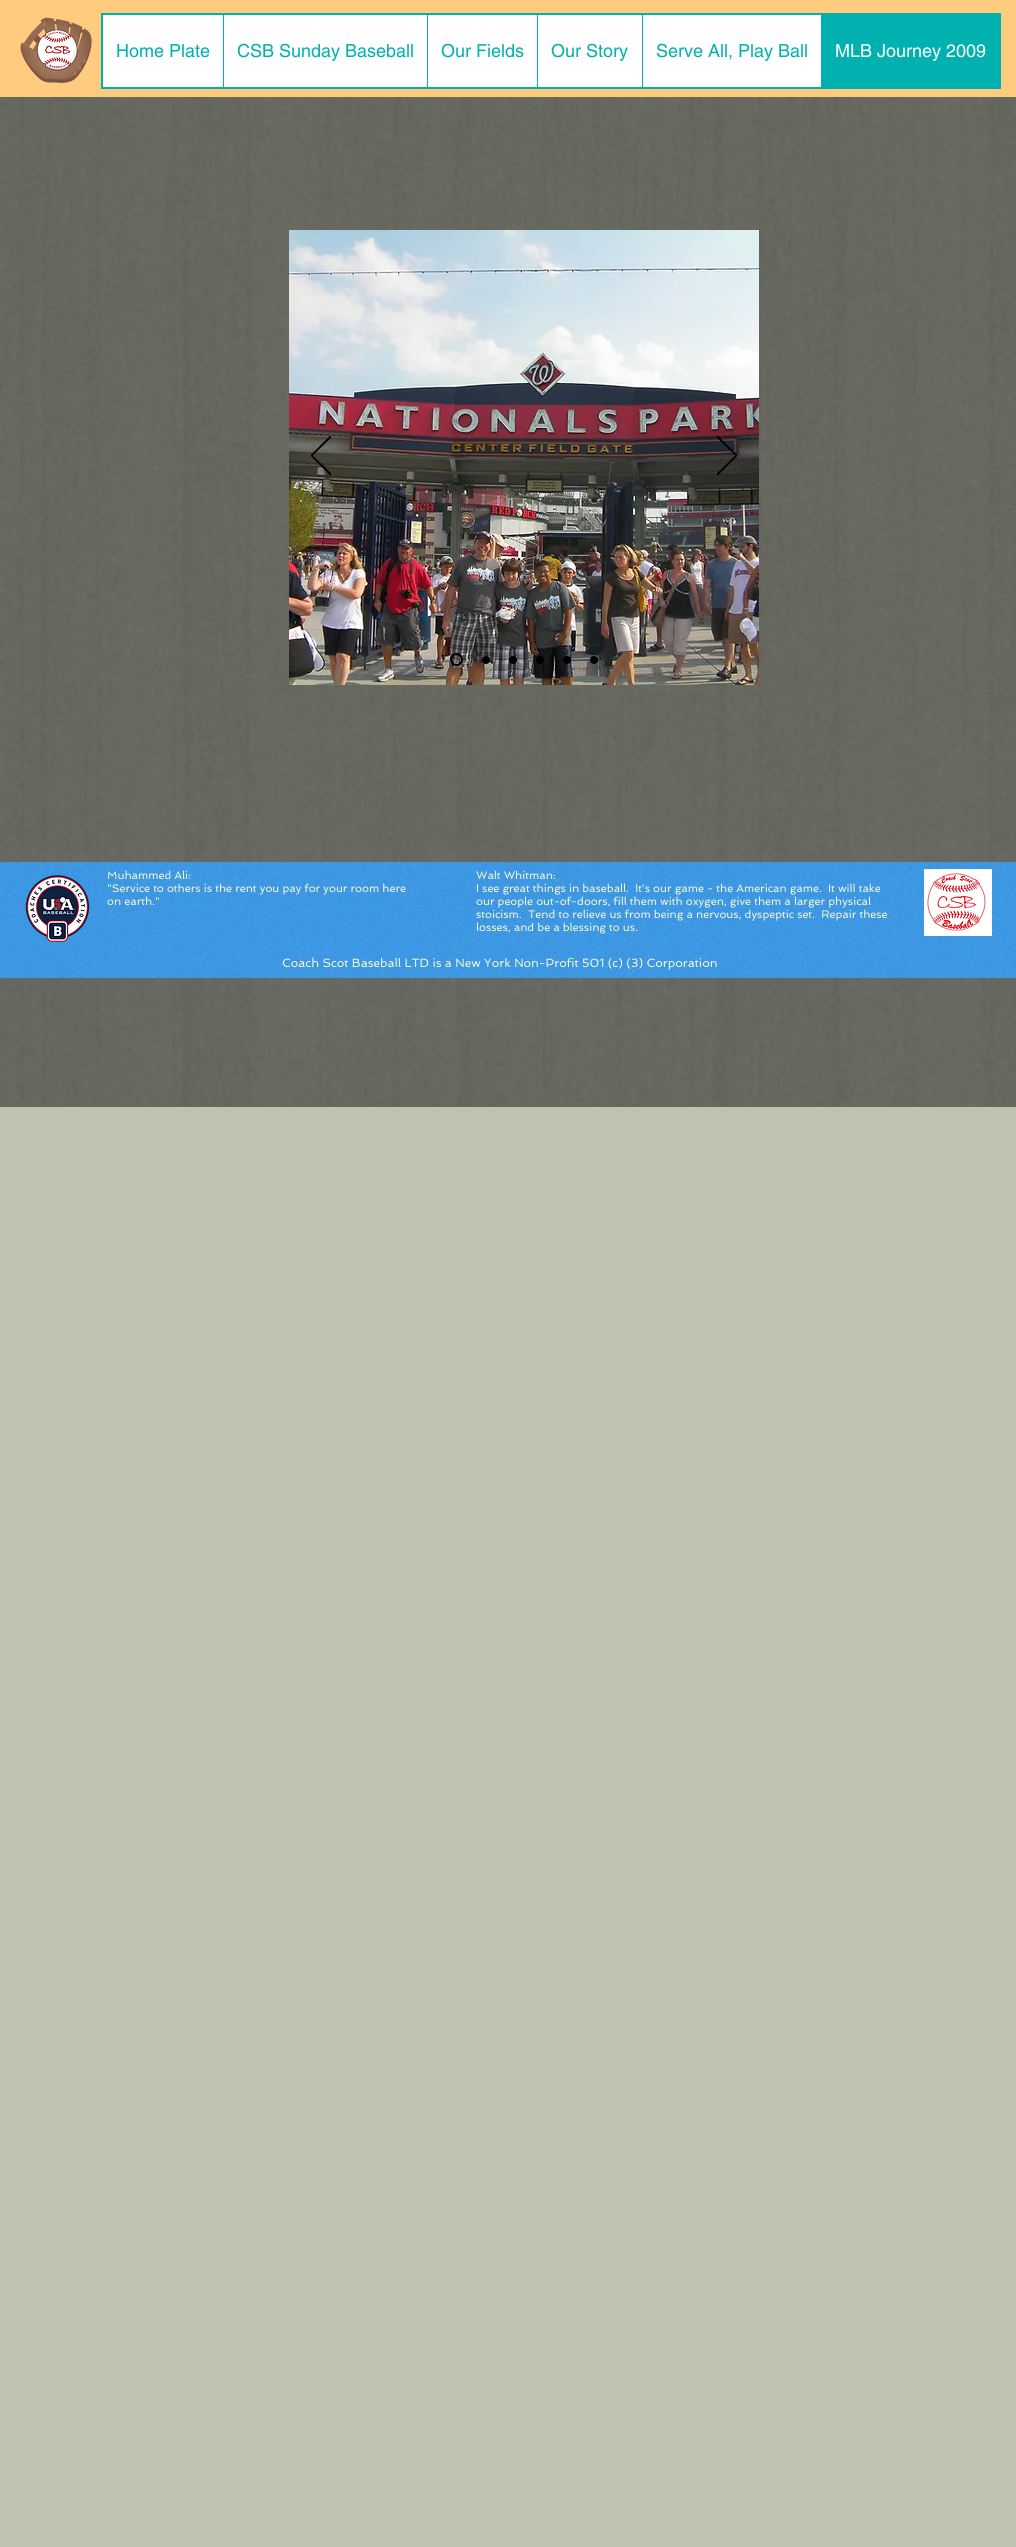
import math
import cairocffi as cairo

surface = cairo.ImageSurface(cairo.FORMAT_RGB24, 1016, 2547)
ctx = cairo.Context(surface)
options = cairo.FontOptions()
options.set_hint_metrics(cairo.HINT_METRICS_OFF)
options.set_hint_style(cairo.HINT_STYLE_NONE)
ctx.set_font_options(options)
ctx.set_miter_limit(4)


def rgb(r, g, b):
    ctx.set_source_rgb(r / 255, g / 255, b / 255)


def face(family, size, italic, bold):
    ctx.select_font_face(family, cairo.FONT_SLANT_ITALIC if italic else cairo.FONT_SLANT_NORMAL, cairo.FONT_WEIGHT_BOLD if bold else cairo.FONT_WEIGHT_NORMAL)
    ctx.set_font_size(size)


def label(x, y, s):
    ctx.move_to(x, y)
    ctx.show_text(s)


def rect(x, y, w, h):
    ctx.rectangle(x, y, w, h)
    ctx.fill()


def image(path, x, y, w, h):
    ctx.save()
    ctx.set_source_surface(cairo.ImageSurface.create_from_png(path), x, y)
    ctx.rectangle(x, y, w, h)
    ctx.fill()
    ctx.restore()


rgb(192, 193, 174)
ctx.paint()
rgb(255, 204, 127)
rect(0, 0, 1016, 97)
image('image0.png', 20, 17, 72, 67)
rgb(255, 255, 255)
rect(103, 15, 718, 72)
ctx.rectangle(102, 14, 898, 74)
rgb(1, 177, 175)
ctx.stroke()
face('helvetica', 18, 0, 0)
label(116, 57, 'Home Plate')
rect(223, 15, 1, 72)
label(237, 57, 'CSB Sunday Baseball')
rect(427, 15, 1, 72)
label(441, 57, 'Our Fields')
rect(537, 15, 1, 72)
label(551, 57, 'Our Story')
rect(642, 15, 1, 72)
label(656, 57, 'Serve All, Play Ball')
rect(821, 15, 178, 72)
rgb(255, 255, 255)
label(835, 57, 'MLB Journey 2009')
image('image5.png', 0, 97, 1016, 1010)
image('image1.png', 289, 230, 470, 455)
ctx.save()
ctx.rectangle(311, 436, 20, 40)
ctx.clip()
ctx.new_path()
ctx.move_to(330.5, 475)
ctx.line_to(311, 455.5)
ctx.line_to(330.5, 436)
ctx.line_to(331, 437)
ctx.line_to(312, 455.5)
ctx.line_to(331, 474)
ctx.close_path()
rgb(0, 0, 0)
ctx.set_line_width(1)
ctx.stroke()
ctx.restore()
ctx.save()
ctx.rectangle(717, 436, 20, 40)
ctx.clip()
ctx.new_path()
ctx.move_to(717.5, 475)
ctx.line_to(737, 455.5)
ctx.line_to(717.5, 436)
ctx.line_to(717, 437)
ctx.line_to(736, 455.5)
ctx.line_to(717, 474)
ctx.close_path()
rgb(0, 0, 0)
ctx.set_line_width(1)
ctx.stroke()
ctx.restore()
ctx.arc(456.5, 659.5, 5.5, 0, 2 * math.pi)
rgb(0, 0, 0)
ctx.stroke()
ctx.arc(486, 660, 4, 0, 2 * math.pi)
ctx.fill()
ctx.arc(513, 660, 4, 0, 2 * math.pi)
ctx.fill()
ctx.arc(540, 660, 4, 0, 2 * math.pi)
ctx.fill()
ctx.arc(567, 660, 4, 0, 2 * math.pi)
ctx.fill()
ctx.arc(594, 660, 4, 0, 2 * math.pi)
ctx.fill()
rgb(61, 155, 233)
rect(0, 862, 1016, 116)
image('image2.png', 0, 862, 1016, 116)
image('image3.png', 25, 875, 65, 67)
face('Spinnaker', 11, 0, 0)
rgb(244, 247, 217)
label(107, 879, 'Muhammed Ali:')
label(107, 892, '"Service to others is the rent you pay for your room here')
label(107, 905, 'on earth."')
label(476, 879, 'Walt Whitman:')
label(476, 892, 'I see great things in baseball.  It\'s our game - the American game.  It will take')
label(476, 905, 'our people out-of-doors, fill them with oxygen, give them a larger physical')
label(476, 918, 'stoicism.  Tend to relieve us from being a nervous, dyspeptic set.  Repair these')
label(476, 931, 'losses, and be a blessing to us.')
image('image4.png', 924, 869, 68, 67)
face('Spinnaker', 12, 0, 0)
label(282, 967, 'Coach Scot Baseball LTD is a New York Non-Profit 501 (c) (3) Corporation')
surface.write_to_png('render.png')
